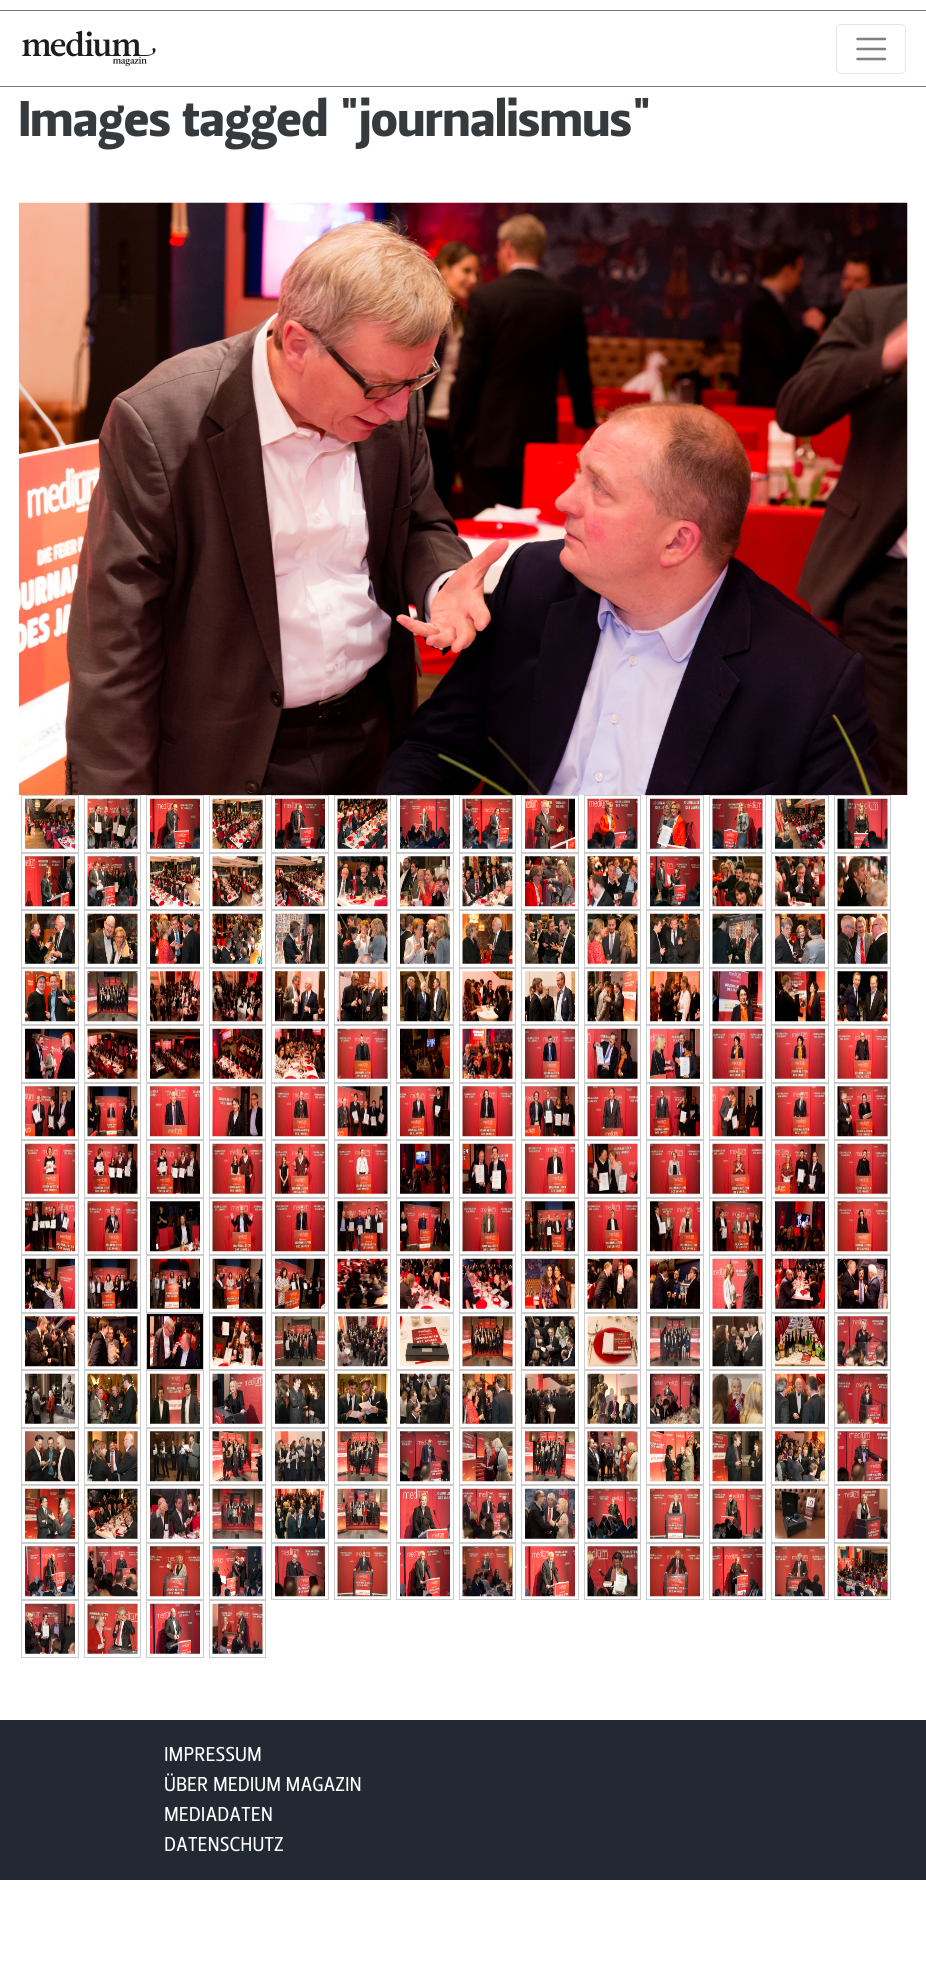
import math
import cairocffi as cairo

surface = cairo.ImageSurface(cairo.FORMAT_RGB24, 926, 1963)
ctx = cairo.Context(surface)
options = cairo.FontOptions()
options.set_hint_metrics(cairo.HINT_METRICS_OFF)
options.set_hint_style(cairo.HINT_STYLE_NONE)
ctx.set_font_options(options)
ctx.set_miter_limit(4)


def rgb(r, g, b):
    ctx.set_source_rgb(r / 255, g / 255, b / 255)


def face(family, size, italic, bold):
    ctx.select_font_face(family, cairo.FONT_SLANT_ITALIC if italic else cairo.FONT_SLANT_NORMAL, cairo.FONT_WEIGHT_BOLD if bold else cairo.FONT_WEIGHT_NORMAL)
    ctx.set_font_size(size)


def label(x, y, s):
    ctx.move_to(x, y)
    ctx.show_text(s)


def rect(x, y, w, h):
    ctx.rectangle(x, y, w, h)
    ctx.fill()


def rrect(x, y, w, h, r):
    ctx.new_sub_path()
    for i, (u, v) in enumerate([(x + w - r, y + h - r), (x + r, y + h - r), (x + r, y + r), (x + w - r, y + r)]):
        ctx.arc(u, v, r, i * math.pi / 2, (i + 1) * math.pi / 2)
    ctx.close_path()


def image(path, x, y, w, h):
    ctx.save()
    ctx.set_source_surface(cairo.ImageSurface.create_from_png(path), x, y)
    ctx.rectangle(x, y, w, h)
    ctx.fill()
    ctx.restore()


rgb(255, 255, 255)
ctx.paint()
rgb(125, 120, 120)
rect(0, 10, 926, 1)
rect(0, 86, 926, 1)
image('image0.png', 22, 30, 134, 37)
rrect(836.5, 24.5, 69, 49, 4.5)
rgb(230, 230, 230)
ctx.set_line_width(1)
ctx.stroke()
ctx.new_path()
ctx.move_to(857.5, 39)
ctx.line_to(885, 39)
ctx.move_to(857.5, 49)
ctx.line_to(885, 49)
ctx.move_to(857.5, 59)
ctx.line_to(885, 59)
rgb(128, 128, 128)
ctx.set_line_width(2.5)
ctx.set_line_cap(cairo.LINE_CAP_ROUND)
ctx.stroke()
face('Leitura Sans', 50, 0, 0)
rgb(55, 58, 60)
label(19, 136, 'Images tagged "journalismus"')
image('image1.png', 18, 202, 890, 593)
ctx.rectangle(21.5, 795.5, 57, 57)
rgb(204, 204, 204)
ctx.set_line_width(1)
ctx.set_line_cap(cairo.LINE_CAP_BUTT)
ctx.stroke()
image('image2.png', 25, 798, 50, 51)
ctx.rectangle(84.5, 795.5, 56, 57)
ctx.stroke()
image('image3.png', 87, 798, 51, 51)
ctx.rectangle(146.5, 795.5, 57, 57)
ctx.stroke()
image('image4.png', 150, 798, 50, 51)
ctx.rectangle(209.5, 795.5, 56, 57)
ctx.stroke()
image('image5.png', 212, 798, 51, 51)
ctx.rectangle(271.5, 795.5, 57, 57)
ctx.stroke()
image('image6.png', 275, 798, 50, 51)
ctx.rectangle(334.5, 795.5, 56, 57)
ctx.stroke()
image('image7.png', 337, 798, 51, 51)
ctx.rectangle(396.5, 795.5, 57, 57)
ctx.stroke()
image('image8.png', 400, 798, 50, 51)
ctx.rectangle(459.5, 795.5, 56, 57)
ctx.stroke()
image('image9.png', 462, 798, 51, 51)
ctx.rectangle(521.5, 795.5, 57, 57)
ctx.stroke()
image('image10.png', 525, 798, 50, 51)
ctx.rectangle(584.5, 795.5, 56, 57)
ctx.stroke()
image('image11.png', 587, 798, 51, 51)
ctx.rectangle(646.5, 795.5, 57, 57)
ctx.stroke()
image('image12.png', 650, 798, 50, 51)
ctx.rectangle(709.5, 795.5, 56, 57)
ctx.stroke()
image('image13.png', 712, 798, 51, 51)
ctx.rectangle(771.5, 795.5, 57, 57)
ctx.stroke()
image('image14.png', 775, 798, 50, 51)
ctx.rectangle(834.5, 795.5, 56, 57)
ctx.stroke()
image('image15.png', 837, 798, 51, 51)
ctx.rectangle(21.5, 853.5, 57, 56)
ctx.stroke()
image('image16.png', 25, 856, 50, 51)
ctx.rectangle(84.5, 853.5, 56, 56)
ctx.stroke()
image('image17.png', 87, 856, 51, 51)
ctx.rectangle(146.5, 853.5, 57, 56)
ctx.stroke()
image('image18.png', 150, 856, 50, 51)
ctx.rectangle(209.5, 853.5, 56, 56)
ctx.stroke()
image('image19.png', 212, 856, 51, 51)
ctx.rectangle(271.5, 853.5, 57, 56)
ctx.stroke()
image('image20.png', 275, 856, 50, 51)
ctx.rectangle(334.5, 853.5, 56, 56)
ctx.stroke()
image('image21.png', 337, 856, 51, 51)
ctx.rectangle(396.5, 853.5, 57, 56)
ctx.stroke()
image('image22.png', 400, 856, 50, 51)
ctx.rectangle(459.5, 853.5, 56, 56)
ctx.stroke()
image('image23.png', 462, 856, 51, 51)
ctx.rectangle(521.5, 853.5, 57, 56)
ctx.stroke()
image('image24.png', 525, 856, 50, 51)
ctx.rectangle(584.5, 853.5, 56, 56)
ctx.stroke()
image('image25.png', 587, 856, 51, 51)
ctx.rectangle(646.5, 853.5, 57, 56)
ctx.stroke()
image('image26.png', 650, 856, 50, 51)
ctx.rectangle(709.5, 853.5, 56, 56)
ctx.stroke()
image('image27.png', 712, 856, 51, 51)
ctx.rectangle(771.5, 853.5, 57, 56)
ctx.stroke()
image('image28.png', 775, 856, 50, 51)
ctx.rectangle(834.5, 853.5, 56, 56)
ctx.stroke()
image('image29.png', 837, 856, 51, 51)
ctx.rectangle(21.5, 910.5, 57, 57)
ctx.stroke()
image('image30.png', 25, 913, 50, 51)
ctx.rectangle(84.5, 910.5, 56, 57)
ctx.stroke()
image('image31.png', 87, 913, 51, 51)
ctx.rectangle(146.5, 910.5, 57, 57)
ctx.stroke()
image('image32.png', 150, 913, 50, 51)
ctx.rectangle(209.5, 910.5, 56, 57)
ctx.stroke()
image('image33.png', 212, 913, 51, 51)
ctx.rectangle(271.5, 910.5, 57, 57)
ctx.stroke()
image('image34.png', 275, 913, 50, 51)
ctx.rectangle(334.5, 910.5, 56, 57)
ctx.stroke()
image('image35.png', 337, 913, 51, 51)
ctx.rectangle(396.5, 910.5, 57, 57)
ctx.stroke()
image('image36.png', 400, 913, 50, 51)
ctx.rectangle(459.5, 910.5, 56, 57)
ctx.stroke()
image('image37.png', 462, 913, 51, 51)
ctx.rectangle(521.5, 910.5, 57, 57)
ctx.stroke()
image('image38.png', 525, 913, 50, 51)
ctx.rectangle(584.5, 910.5, 56, 57)
ctx.stroke()
image('image39.png', 587, 913, 51, 51)
ctx.rectangle(646.5, 910.5, 57, 57)
ctx.stroke()
image('image40.png', 650, 913, 50, 51)
ctx.rectangle(709.5, 910.5, 56, 57)
ctx.stroke()
image('image41.png', 712, 913, 51, 51)
ctx.rectangle(771.5, 910.5, 57, 57)
ctx.stroke()
image('image42.png', 775, 913, 50, 51)
ctx.rectangle(834.5, 910.5, 56, 57)
ctx.stroke()
image('image43.png', 837, 913, 51, 51)
ctx.rectangle(21.5, 968.5, 57, 56)
ctx.stroke()
image('image44.png', 25, 971, 50, 51)
ctx.rectangle(84.5, 968.5, 56, 56)
ctx.stroke()
image('image45.png', 87, 971, 51, 51)
ctx.rectangle(146.5, 968.5, 57, 56)
ctx.stroke()
image('image46.png', 150, 971, 50, 51)
ctx.rectangle(209.5, 968.5, 56, 56)
ctx.stroke()
image('image47.png', 212, 971, 51, 51)
ctx.rectangle(271.5, 968.5, 57, 56)
ctx.stroke()
image('image48.png', 275, 971, 50, 51)
ctx.rectangle(334.5, 968.5, 56, 56)
ctx.stroke()
image('image49.png', 337, 971, 51, 51)
ctx.rectangle(396.5, 968.5, 57, 56)
ctx.stroke()
image('image50.png', 400, 971, 50, 51)
ctx.rectangle(459.5, 968.5, 56, 56)
ctx.stroke()
image('image51.png', 462, 971, 51, 51)
ctx.rectangle(521.5, 968.5, 57, 56)
ctx.stroke()
image('image52.png', 525, 971, 50, 51)
ctx.rectangle(584.5, 968.5, 56, 56)
ctx.stroke()
image('image53.png', 587, 971, 51, 51)
ctx.rectangle(646.5, 968.5, 57, 56)
ctx.stroke()
image('image54.png', 650, 971, 50, 51)
ctx.rectangle(709.5, 968.5, 56, 56)
ctx.stroke()
image('image55.png', 712, 971, 51, 51)
ctx.rectangle(771.5, 968.5, 57, 56)
ctx.stroke()
image('image56.png', 775, 971, 50, 51)
ctx.rectangle(834.5, 968.5, 56, 56)
ctx.stroke()
image('image57.png', 837, 971, 51, 51)
ctx.rectangle(21.5, 1025.5, 57, 57)
ctx.stroke()
image('image58.png', 25, 1028, 50, 51)
ctx.rectangle(84.5, 1025.5, 56, 57)
ctx.stroke()
image('image59.png', 87, 1028, 51, 51)
ctx.rectangle(146.5, 1025.5, 57, 57)
ctx.stroke()
image('image60.png', 150, 1028, 50, 51)
ctx.rectangle(209.5, 1025.5, 56, 57)
ctx.stroke()
image('image61.png', 212, 1028, 51, 51)
ctx.rectangle(271.5, 1025.5, 57, 57)
ctx.stroke()
image('image62.png', 275, 1028, 50, 51)
ctx.rectangle(334.5, 1025.5, 56, 57)
ctx.stroke()
image('image63.png', 337, 1028, 51, 51)
ctx.rectangle(396.5, 1025.5, 57, 57)
ctx.stroke()
image('image64.png', 400, 1028, 50, 51)
ctx.rectangle(459.5, 1025.5, 56, 57)
ctx.stroke()
image('image65.png', 462, 1028, 51, 51)
ctx.rectangle(521.5, 1025.5, 57, 57)
ctx.stroke()
image('image66.png', 525, 1028, 50, 51)
ctx.rectangle(584.5, 1025.5, 56, 57)
ctx.stroke()
image('image67.png', 587, 1028, 51, 51)
ctx.rectangle(646.5, 1025.5, 57, 57)
ctx.stroke()
image('image68.png', 650, 1028, 50, 51)
ctx.rectangle(709.5, 1025.5, 56, 57)
ctx.stroke()
image('image69.png', 712, 1028, 51, 51)
ctx.rectangle(771.5, 1025.5, 57, 57)
ctx.stroke()
image('image70.png', 775, 1028, 50, 51)
ctx.rectangle(834.5, 1025.5, 56, 57)
ctx.stroke()
image('image71.png', 837, 1028, 51, 51)
ctx.rectangle(21.5, 1083.5, 57, 56)
ctx.stroke()
image('image72.png', 25, 1086, 50, 51)
ctx.rectangle(84.5, 1083.5, 56, 56)
ctx.stroke()
image('image73.png', 87, 1086, 51, 51)
ctx.rectangle(146.5, 1083.5, 57, 56)
ctx.stroke()
image('image74.png', 150, 1086, 50, 51)
ctx.rectangle(209.5, 1083.5, 56, 56)
ctx.stroke()
image('image75.png', 212, 1086, 51, 51)
ctx.rectangle(271.5, 1083.5, 57, 56)
ctx.stroke()
image('image76.png', 275, 1086, 50, 51)
ctx.rectangle(334.5, 1083.5, 56, 56)
ctx.stroke()
image('image77.png', 337, 1086, 51, 51)
ctx.rectangle(396.5, 1083.5, 57, 56)
ctx.stroke()
image('image78.png', 400, 1086, 50, 51)
ctx.rectangle(459.5, 1083.5, 56, 56)
ctx.stroke()
image('image79.png', 462, 1086, 51, 51)
ctx.rectangle(521.5, 1083.5, 57, 56)
ctx.stroke()
image('image80.png', 525, 1086, 50, 51)
ctx.rectangle(584.5, 1083.5, 56, 56)
ctx.stroke()
image('image81.png', 587, 1086, 51, 51)
ctx.rectangle(646.5, 1083.5, 57, 56)
ctx.stroke()
image('image82.png', 650, 1086, 50, 51)
ctx.rectangle(709.5, 1083.5, 56, 56)
ctx.stroke()
image('image83.png', 712, 1086, 51, 51)
ctx.rectangle(771.5, 1083.5, 57, 56)
ctx.stroke()
image('image84.png', 775, 1086, 50, 51)
ctx.rectangle(834.5, 1083.5, 56, 56)
ctx.stroke()
image('image85.png', 837, 1086, 51, 51)
ctx.rectangle(21.5, 1140.5, 57, 57)
ctx.stroke()
image('image86.png', 25, 1143, 50, 51)
ctx.rectangle(84.5, 1140.5, 56, 57)
ctx.stroke()
image('image87.png', 87, 1143, 51, 51)
ctx.rectangle(146.5, 1140.5, 57, 57)
ctx.stroke()
image('image88.png', 150, 1143, 50, 51)
ctx.rectangle(209.5, 1140.5, 56, 57)
ctx.stroke()
image('image89.png', 212, 1143, 51, 51)
ctx.rectangle(271.5, 1140.5, 57, 57)
ctx.stroke()
image('image90.png', 275, 1143, 50, 51)
ctx.rectangle(334.5, 1140.5, 56, 57)
ctx.stroke()
image('image91.png', 337, 1143, 51, 51)
ctx.rectangle(396.5, 1140.5, 57, 57)
ctx.stroke()
image('image92.png', 400, 1143, 50, 51)
ctx.rectangle(459.5, 1140.5, 56, 57)
ctx.stroke()
image('image93.png', 462, 1143, 51, 51)
ctx.rectangle(521.5, 1140.5, 57, 57)
ctx.stroke()
image('image94.png', 525, 1143, 50, 51)
ctx.rectangle(584.5, 1140.5, 56, 57)
ctx.stroke()
image('image95.png', 587, 1143, 51, 51)
ctx.rectangle(646.5, 1140.5, 57, 57)
ctx.stroke()
image('image96.png', 650, 1143, 50, 51)
ctx.rectangle(709.5, 1140.5, 56, 57)
ctx.stroke()
image('image97.png', 712, 1143, 51, 51)
ctx.rectangle(771.5, 1140.5, 57, 57)
ctx.stroke()
image('image98.png', 775, 1143, 50, 51)
ctx.rectangle(834.5, 1140.5, 56, 57)
ctx.stroke()
image('image99.png', 837, 1143, 51, 51)
ctx.rectangle(21.5, 1198.5, 57, 56)
ctx.stroke()
image('image100.png', 25, 1201, 50, 51)
ctx.rectangle(84.5, 1198.5, 56, 56)
ctx.stroke()
image('image101.png', 87, 1201, 51, 51)
ctx.rectangle(146.5, 1198.5, 57, 56)
ctx.stroke()
image('image102.png', 150, 1201, 50, 51)
ctx.rectangle(209.5, 1198.5, 56, 56)
ctx.stroke()
image('image103.png', 212, 1201, 51, 51)
ctx.rectangle(271.5, 1198.5, 57, 56)
ctx.stroke()
image('image104.png', 275, 1201, 50, 51)
ctx.rectangle(334.5, 1198.5, 56, 56)
ctx.stroke()
image('image105.png', 337, 1201, 51, 51)
ctx.rectangle(396.5, 1198.5, 57, 56)
ctx.stroke()
image('image106.png', 400, 1201, 50, 51)
ctx.rectangle(459.5, 1198.5, 56, 56)
ctx.stroke()
image('image107.png', 462, 1201, 51, 51)
ctx.rectangle(521.5, 1198.5, 57, 56)
ctx.stroke()
image('image108.png', 525, 1201, 50, 51)
ctx.rectangle(584.5, 1198.5, 56, 56)
ctx.stroke()
image('image109.png', 587, 1201, 51, 51)
ctx.rectangle(646.5, 1198.5, 57, 56)
ctx.stroke()
image('image110.png', 650, 1201, 50, 51)
ctx.rectangle(709.5, 1198.5, 56, 56)
ctx.stroke()
image('image111.png', 712, 1201, 51, 51)
ctx.rectangle(771.5, 1198.5, 57, 56)
ctx.stroke()
image('image112.png', 775, 1201, 50, 51)
ctx.rectangle(834.5, 1198.5, 56, 56)
ctx.stroke()
image('image113.png', 837, 1201, 51, 51)
ctx.rectangle(21.5, 1255.5, 57, 57)
ctx.stroke()
image('image114.png', 25, 1258, 50, 51)
ctx.rectangle(84.5, 1255.5, 56, 57)
ctx.stroke()
image('image115.png', 87, 1258, 51, 51)
ctx.rectangle(146.5, 1255.5, 57, 57)
ctx.stroke()
image('image116.png', 150, 1258, 50, 51)
ctx.rectangle(209.5, 1255.5, 56, 57)
ctx.stroke()
image('image117.png', 212, 1258, 51, 51)
ctx.rectangle(271.5, 1255.5, 57, 57)
ctx.stroke()
image('image118.png', 275, 1258, 50, 51)
ctx.rectangle(334.5, 1255.5, 56, 57)
ctx.stroke()
image('image119.png', 337, 1258, 51, 51)
ctx.rectangle(396.5, 1255.5, 57, 57)
ctx.stroke()
image('image120.png', 400, 1258, 50, 51)
ctx.rectangle(459.5, 1255.5, 56, 57)
ctx.stroke()
image('image121.png', 462, 1258, 51, 51)
ctx.rectangle(521.5, 1255.5, 57, 57)
ctx.stroke()
image('image122.png', 525, 1258, 50, 51)
ctx.rectangle(584.5, 1255.5, 56, 57)
ctx.stroke()
image('image123.png', 587, 1258, 51, 51)
ctx.rectangle(646.5, 1255.5, 57, 57)
ctx.stroke()
image('image124.png', 650, 1258, 50, 51)
ctx.rectangle(709.5, 1255.5, 56, 57)
ctx.stroke()
image('image125.png', 712, 1258, 51, 51)
ctx.rectangle(771.5, 1255.5, 57, 57)
ctx.stroke()
image('image126.png', 775, 1258, 50, 51)
ctx.rectangle(834.5, 1255.5, 56, 57)
ctx.stroke()
image('image127.png', 837, 1258, 51, 51)
ctx.rectangle(21.5, 1313.5, 57, 56)
ctx.stroke()
image('image128.png', 25, 1316, 50, 51)
ctx.rectangle(84.5, 1313.5, 56, 56)
ctx.stroke()
image('image129.png', 87, 1316, 51, 51)
rgb(0, 0, 0)
ctx.rectangle(146.5, 1313.5, 57, 56)
ctx.fill_preserve()
rgb(204, 204, 204)
ctx.stroke()
image('image130.png', 150, 1316, 50, 51)
ctx.rectangle(209.5, 1313.5, 56, 56)
ctx.stroke()
image('image131.png', 212, 1316, 51, 51)
ctx.rectangle(271.5, 1313.5, 57, 56)
ctx.stroke()
image('image132.png', 275, 1316, 50, 51)
ctx.rectangle(334.5, 1313.5, 56, 56)
ctx.stroke()
image('image133.png', 337, 1316, 51, 51)
ctx.rectangle(396.5, 1313.5, 57, 56)
ctx.stroke()
image('image134.png', 400, 1316, 50, 51)
ctx.rectangle(459.5, 1313.5, 56, 56)
ctx.stroke()
image('image135.png', 462, 1316, 51, 51)
ctx.rectangle(521.5, 1313.5, 57, 56)
ctx.stroke()
image('image136.png', 525, 1316, 50, 51)
ctx.rectangle(584.5, 1313.5, 56, 56)
ctx.stroke()
image('image137.png', 587, 1316, 51, 51)
ctx.rectangle(646.5, 1313.5, 57, 56)
ctx.stroke()
image('image138.png', 650, 1316, 50, 51)
ctx.rectangle(709.5, 1313.5, 56, 56)
ctx.stroke()
image('image139.png', 712, 1316, 51, 51)
ctx.rectangle(771.5, 1313.5, 57, 56)
ctx.stroke()
image('image140.png', 775, 1316, 50, 51)
ctx.rectangle(834.5, 1313.5, 56, 56)
ctx.stroke()
image('image141.png', 837, 1316, 51, 51)
ctx.rectangle(21.5, 1370.5, 57, 57)
ctx.stroke()
image('image142.png', 25, 1373, 50, 51)
ctx.rectangle(84.5, 1370.5, 56, 57)
ctx.stroke()
image('image143.png', 87, 1373, 51, 51)
ctx.rectangle(146.5, 1370.5, 57, 57)
ctx.stroke()
image('image144.png', 150, 1373, 50, 51)
ctx.rectangle(209.5, 1370.5, 56, 57)
ctx.stroke()
image('image145.png', 212, 1373, 51, 51)
ctx.rectangle(271.5, 1370.5, 57, 57)
ctx.stroke()
image('image146.png', 275, 1373, 50, 51)
ctx.rectangle(334.5, 1370.5, 56, 57)
ctx.stroke()
image('image147.png', 337, 1373, 51, 51)
ctx.rectangle(396.5, 1370.5, 57, 57)
ctx.stroke()
image('image148.png', 400, 1373, 50, 51)
ctx.rectangle(459.5, 1370.5, 56, 57)
ctx.stroke()
image('image149.png', 462, 1373, 51, 51)
ctx.rectangle(521.5, 1370.5, 57, 57)
ctx.stroke()
image('image150.png', 525, 1373, 50, 51)
ctx.rectangle(584.5, 1370.5, 56, 57)
ctx.stroke()
image('image151.png', 587, 1373, 51, 51)
ctx.rectangle(646.5, 1370.5, 57, 57)
ctx.stroke()
image('image152.png', 650, 1373, 50, 51)
ctx.rectangle(709.5, 1370.5, 56, 57)
ctx.stroke()
image('image153.png', 712, 1373, 51, 51)
ctx.rectangle(771.5, 1370.5, 57, 57)
ctx.stroke()
image('image154.png', 775, 1373, 50, 51)
ctx.rectangle(834.5, 1370.5, 56, 57)
ctx.stroke()
image('image155.png', 837, 1373, 51, 51)
ctx.rectangle(21.5, 1428.5, 57, 56)
ctx.stroke()
image('image156.png', 25, 1431, 50, 51)
ctx.rectangle(84.5, 1428.5, 56, 56)
ctx.stroke()
image('image157.png', 87, 1431, 51, 51)
ctx.rectangle(146.5, 1428.5, 57, 56)
ctx.stroke()
image('image158.png', 150, 1431, 50, 51)
ctx.rectangle(209.5, 1428.5, 56, 56)
ctx.stroke()
image('image159.png', 212, 1431, 51, 51)
ctx.rectangle(271.5, 1428.5, 57, 56)
ctx.stroke()
image('image160.png', 275, 1431, 50, 51)
ctx.rectangle(334.5, 1428.5, 56, 56)
ctx.stroke()
image('image161.png', 337, 1431, 51, 51)
ctx.rectangle(396.5, 1428.5, 57, 56)
ctx.stroke()
image('image162.png', 400, 1431, 50, 51)
ctx.rectangle(459.5, 1428.5, 56, 56)
ctx.stroke()
image('image163.png', 462, 1431, 51, 51)
ctx.rectangle(521.5, 1428.5, 57, 56)
ctx.stroke()
image('image164.png', 525, 1431, 50, 51)
ctx.rectangle(584.5, 1428.5, 56, 56)
ctx.stroke()
image('image165.png', 587, 1431, 51, 51)
ctx.rectangle(646.5, 1428.5, 57, 56)
ctx.stroke()
image('image166.png', 650, 1431, 50, 51)
ctx.rectangle(709.5, 1428.5, 56, 56)
ctx.stroke()
image('image167.png', 712, 1431, 51, 51)
ctx.rectangle(771.5, 1428.5, 57, 56)
ctx.stroke()
image('image168.png', 775, 1431, 50, 51)
ctx.rectangle(834.5, 1428.5, 56, 56)
ctx.stroke()
image('image169.png', 837, 1431, 51, 51)
ctx.rectangle(21.5, 1485.5, 57, 57)
ctx.stroke()
image('image170.png', 25, 1488, 50, 51)
ctx.rectangle(84.5, 1485.5, 56, 57)
ctx.stroke()
image('image171.png', 87, 1488, 51, 51)
ctx.rectangle(146.5, 1485.5, 57, 57)
ctx.stroke()
image('image172.png', 150, 1488, 50, 51)
ctx.rectangle(209.5, 1485.5, 56, 57)
ctx.stroke()
image('image173.png', 212, 1488, 51, 51)
ctx.rectangle(271.5, 1485.5, 57, 57)
ctx.stroke()
image('image174.png', 275, 1488, 50, 51)
ctx.rectangle(334.5, 1485.5, 56, 57)
ctx.stroke()
image('image175.png', 337, 1488, 51, 51)
ctx.rectangle(396.5, 1485.5, 57, 57)
ctx.stroke()
image('image176.png', 400, 1488, 50, 51)
ctx.rectangle(459.5, 1485.5, 56, 57)
ctx.stroke()
image('image177.png', 462, 1488, 51, 51)
ctx.rectangle(521.5, 1485.5, 57, 57)
ctx.stroke()
image('image178.png', 525, 1488, 50, 51)
ctx.rectangle(584.5, 1485.5, 56, 57)
ctx.stroke()
image('image179.png', 587, 1488, 51, 51)
ctx.rectangle(646.5, 1485.5, 57, 57)
ctx.stroke()
image('image180.png', 650, 1488, 50, 51)
ctx.rectangle(709.5, 1485.5, 56, 57)
ctx.stroke()
image('image181.png', 712, 1488, 51, 51)
ctx.rectangle(771.5, 1485.5, 57, 57)
ctx.stroke()
image('image182.png', 775, 1488, 50, 51)
ctx.rectangle(834.5, 1485.5, 56, 57)
ctx.stroke()
image('image183.png', 837, 1488, 51, 51)
ctx.rectangle(21.5, 1543.5, 57, 56)
ctx.stroke()
image('image184.png', 25, 1546, 50, 51)
ctx.rectangle(84.5, 1543.5, 56, 56)
ctx.stroke()
image('image185.png', 87, 1546, 51, 51)
ctx.rectangle(146.5, 1543.5, 57, 56)
ctx.stroke()
image('image186.png', 150, 1546, 50, 51)
ctx.rectangle(209.5, 1543.5, 56, 56)
ctx.stroke()
image('image187.png', 212, 1546, 51, 51)
ctx.rectangle(271.5, 1543.5, 57, 56)
ctx.stroke()
image('image188.png', 275, 1546, 50, 51)
ctx.rectangle(334.5, 1543.5, 56, 56)
ctx.stroke()
image('image189.png', 337, 1546, 51, 51)
ctx.rectangle(396.5, 1543.5, 57, 56)
ctx.stroke()
image('image190.png', 400, 1546, 50, 51)
ctx.rectangle(459.5, 1543.5, 56, 56)
ctx.stroke()
image('image191.png', 462, 1546, 51, 51)
ctx.rectangle(521.5, 1543.5, 57, 56)
ctx.stroke()
image('image192.png', 525, 1546, 50, 51)
ctx.rectangle(584.5, 1543.5, 56, 56)
ctx.stroke()
image('image193.png', 587, 1546, 51, 51)
ctx.rectangle(646.5, 1543.5, 57, 56)
ctx.stroke()
image('image194.png', 650, 1546, 50, 51)
ctx.rectangle(709.5, 1543.5, 56, 56)
ctx.stroke()
image('image195.png', 712, 1546, 51, 51)
ctx.rectangle(771.5, 1543.5, 57, 56)
ctx.stroke()
image('image196.png', 775, 1546, 50, 51)
ctx.rectangle(834.5, 1543.5, 56, 56)
ctx.stroke()
image('image197.png', 837, 1546, 51, 51)
ctx.rectangle(21.5, 1600.5, 57, 57)
ctx.stroke()
image('image198.png', 25, 1603, 50, 51)
ctx.rectangle(84.5, 1600.5, 56, 57)
ctx.stroke()
image('image199.png', 87, 1603, 51, 51)
ctx.rectangle(146.5, 1600.5, 57, 57)
ctx.stroke()
image('image200.png', 150, 1603, 50, 51)
ctx.rectangle(209.5, 1600.5, 56, 57)
ctx.stroke()
image('image201.png', 212, 1603, 51, 51)
rgb(34, 41, 51)
rect(0, 1720, 926, 160)
face('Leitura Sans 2', 20, 0, 0)
rgb(255, 255, 255)
label(164, 1761, 'IMPRESSUM')
label(164, 1791, 'ÜBER MEDIUM MAGAZIN')
label(164, 1821, 'MEDIADATEN')
label(164, 1851, 'DATENSCHUTZ')
surface.write_to_png('render.png')
